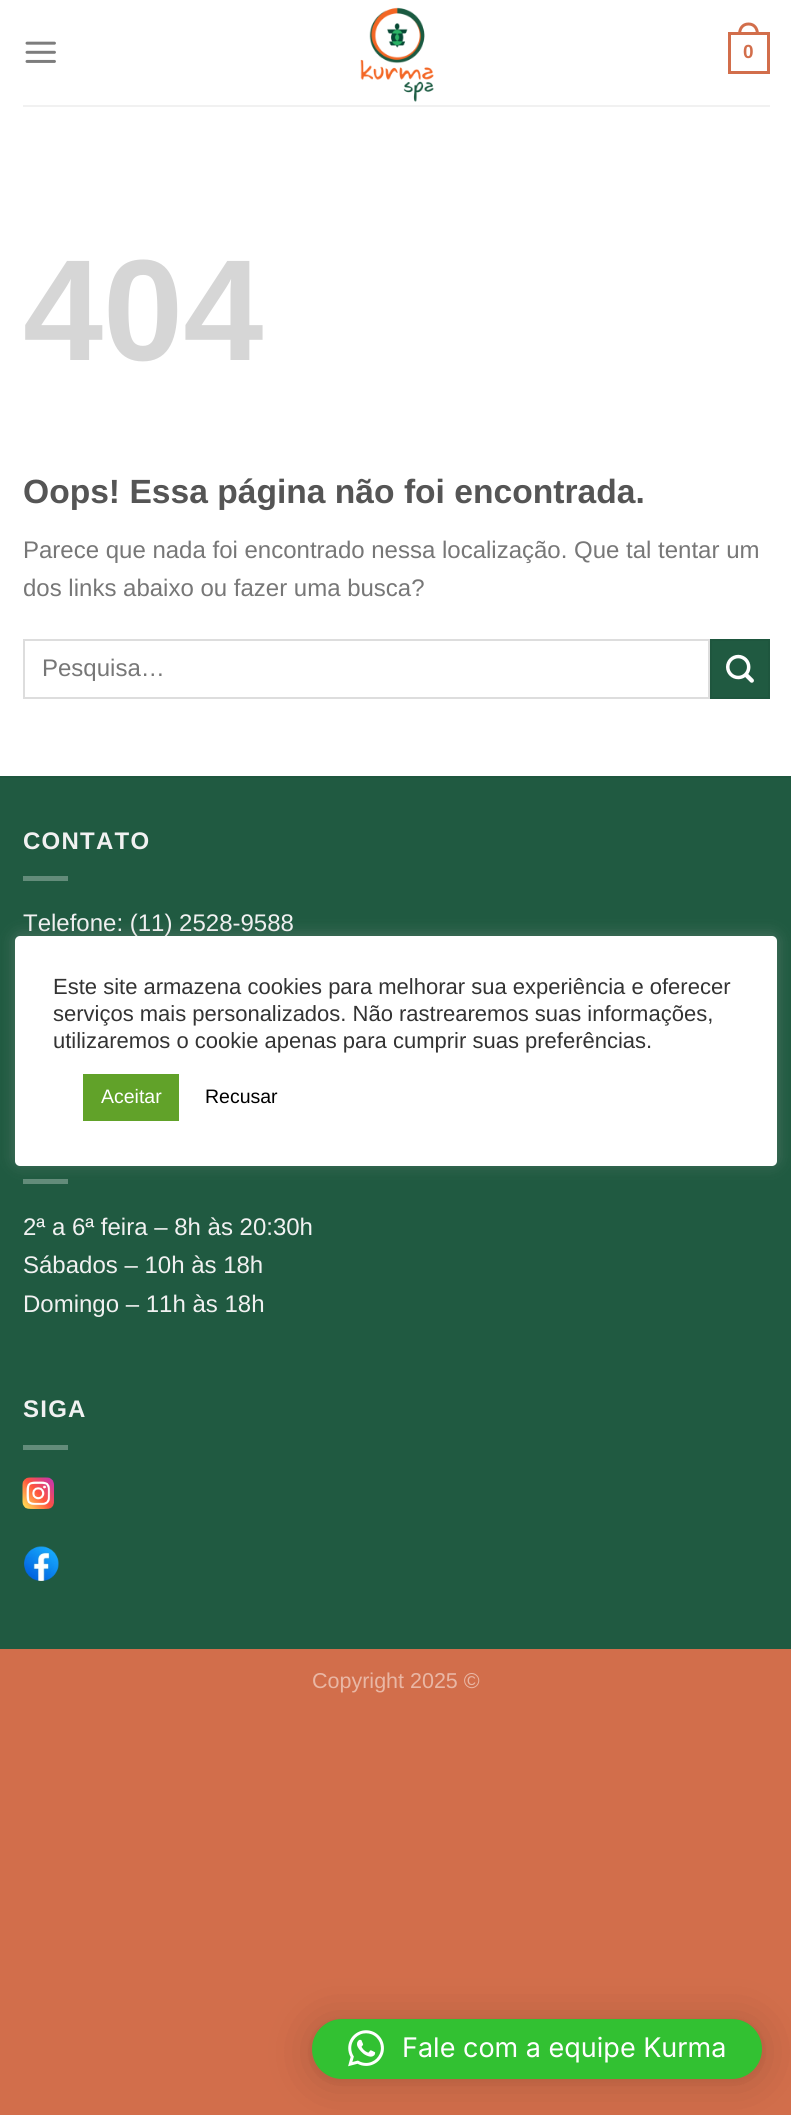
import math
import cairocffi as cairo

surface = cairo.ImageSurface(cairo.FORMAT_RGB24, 791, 2115)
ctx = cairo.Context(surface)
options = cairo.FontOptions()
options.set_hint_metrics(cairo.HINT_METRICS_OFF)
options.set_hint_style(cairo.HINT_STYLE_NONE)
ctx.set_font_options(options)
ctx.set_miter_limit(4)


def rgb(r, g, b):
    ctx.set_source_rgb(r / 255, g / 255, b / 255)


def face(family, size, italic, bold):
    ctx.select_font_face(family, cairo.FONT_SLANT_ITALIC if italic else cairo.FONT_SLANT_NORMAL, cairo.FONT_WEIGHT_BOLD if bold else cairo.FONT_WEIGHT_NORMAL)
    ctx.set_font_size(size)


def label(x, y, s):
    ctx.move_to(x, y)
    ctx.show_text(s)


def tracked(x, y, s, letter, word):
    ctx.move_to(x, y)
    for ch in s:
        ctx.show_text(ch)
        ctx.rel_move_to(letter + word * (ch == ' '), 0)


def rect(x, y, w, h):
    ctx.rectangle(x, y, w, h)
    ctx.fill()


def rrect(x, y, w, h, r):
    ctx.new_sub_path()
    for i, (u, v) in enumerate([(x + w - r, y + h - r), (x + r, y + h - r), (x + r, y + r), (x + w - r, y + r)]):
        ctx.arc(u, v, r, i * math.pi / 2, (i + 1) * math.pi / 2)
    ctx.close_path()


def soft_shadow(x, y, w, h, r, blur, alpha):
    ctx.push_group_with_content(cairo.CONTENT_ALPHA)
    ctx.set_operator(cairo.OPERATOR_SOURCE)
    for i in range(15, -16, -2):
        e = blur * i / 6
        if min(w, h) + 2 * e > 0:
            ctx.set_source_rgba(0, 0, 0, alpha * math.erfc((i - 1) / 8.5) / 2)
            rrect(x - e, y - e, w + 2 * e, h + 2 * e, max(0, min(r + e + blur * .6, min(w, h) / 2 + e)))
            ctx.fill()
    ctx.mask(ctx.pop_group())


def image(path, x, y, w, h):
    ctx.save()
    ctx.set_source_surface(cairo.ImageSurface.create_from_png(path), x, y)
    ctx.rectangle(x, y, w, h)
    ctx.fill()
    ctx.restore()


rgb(210, 110, 75)
ctx.paint()
rgb(255, 255, 255)
rect(0, 0, 791, 776)
image('image0.png', 25, 41, 31, 22)
image('image1.png', 360, 7, 74, 95)
ctx.rectangle(729.5, 33.5, 39, 39)
rgb(210, 110, 75)
ctx.set_line_width(3)
ctx.stroke()
ctx.set_fill_rule(cairo.FILL_RULE_EVEN_ODD)
ctx.new_path()
ctx.move_to(748.5, 22.5)
ctx.curve_to(755.5, 22.5, 759, 28, 759, 34.5)
ctx.line_to(738, 34.5)
ctx.curve_to(738, 28, 741.5, 22.5, 748.5, 22.5)
ctx.close_path()
ctx.move_to(748.5, 25.5)
ctx.curve_to(754, 25.5, 756, 30, 756, 34.5)
ctx.line_to(741, 34.5)
ctx.curve_to(741, 30, 743, 25.5, 748.5, 25.5)
ctx.close_path()
ctx.fill()
face('Liberation Sans', 19, 0, 1)
label(743, 58, '0')
rgb(241, 241, 241)
rect(23, 105, 747, 2)
face('Liberation Sans', 144, 0, 1)
rgb(214, 214, 214)
label(23, 360, '404')
face('Liberation Sans', 33.6, 0, 1)
rgb(85, 85, 85)
label(23, 503, 'Oops! Essa página não foi encontrada.')
face('Liberation Sans', 24, 0, 0)
rgb(119, 119, 119)
label(23, 558, 'Parece que nada foi encontrado nessa localização. Que tal tentar um')
label(23, 596, 'dos links abaixo ou fazer uma busca?')
ctx.rectangle(24, 640, 685, 58)
rgb(221, 221, 221)
ctx.set_line_width(2)
ctx.stroke()
rgb(119, 119, 119)
label(42, 676, 'Pesquisa…')
rgb(32, 90, 65)
ctx.rectangle(711, 640, 58, 58)
ctx.fill_preserve()
rgb(30, 86, 62)
ctx.stroke()
image('image2.png', 726, 654, 28, 29)
rgb(32, 90, 65)
rect(0, 778, 791, 871)
rgb(30, 86, 62)
rect(0, 776, 791, 2)
face('Liberation Sans', 24, 0, 1)
rgb(241, 241, 241)
tracked(23, 849, 'CONTATO', 1.25, 0)
rgb(99, 140, 122)
rect(23, 876, 45, 5)
face('Liberation Sans', 24, 0, 0)
rgb(241, 241, 241)
label(23, 931, 'Telefone: (11) 2528-9588')
rgb(99, 140, 122)
rect(23, 1179, 45, 5)
rgb(241, 241, 241)
label(23, 1235, '2ª a 6ª feira – 8h às 20:30h')
label(23, 1273, 'Sábados – 10h às 18h')
label(23, 1312, 'Domingo – 11h às 18h')
face('Liberation Sans', 24, 0, 1)
tracked(23, 1417, 'SIGA', 1.25, 0)
rgb(99, 140, 122)
rect(23, 1445, 45, 5)
image('image3.png', 22, 1477, 32, 32)
image('image4.png', 24, 1546, 35, 35)
face('Liberation Sans', 21.5, 0, 0)
rgb(233, 183, 165)
label(312, 1688, 'Copyright 2025 ©')
rgb(172, 171, 171)
soft_shadow(15, 935, 762, 229, 5, 7.5, 0.3)
rgb(255, 255, 255)
rrect(15, 936, 762, 230, 5)
ctx.fill()
face('Liberation Sans', 22, 0, 0)
rgb(51, 51, 51)
label(53, 994, 'Este site armazena cookies para melhorar sua experiência e oferecer')
label(53, 1021, 'serviços mais personalizados. Não rastrearemos suas informações,')
label(53, 1048, 'utilizaremos o cookie apenas para cumprir suas preferências.')
rgb(97, 162, 41)
rect(83, 1074, 96, 47)
face('Liberation Sans', 19.5, 0, 0)
rgb(255, 255, 255)
label(101, 1103, 'Aceitar')
rgb(0, 0, 0)
label(205, 1103, 'Recusar')
rgb(0, 0, 0)
soft_shadow(312, 2022, 450, 60, 30, 24, 0.16)
soft_shadow(312, 2021, 450, 60, 30, 4.5, 0.06)
rgb(50, 193, 50)
rrect(312, 2019, 450, 60, 30)
ctx.fill()
image('image5.png', 348, 2030, 36, 37)
face('Inter', 27, 0, 0)
rgb(255, 255, 255)
label(402, 2057, 'Fale com a equipe Kurma')
surface.write_to_png('render.png')
